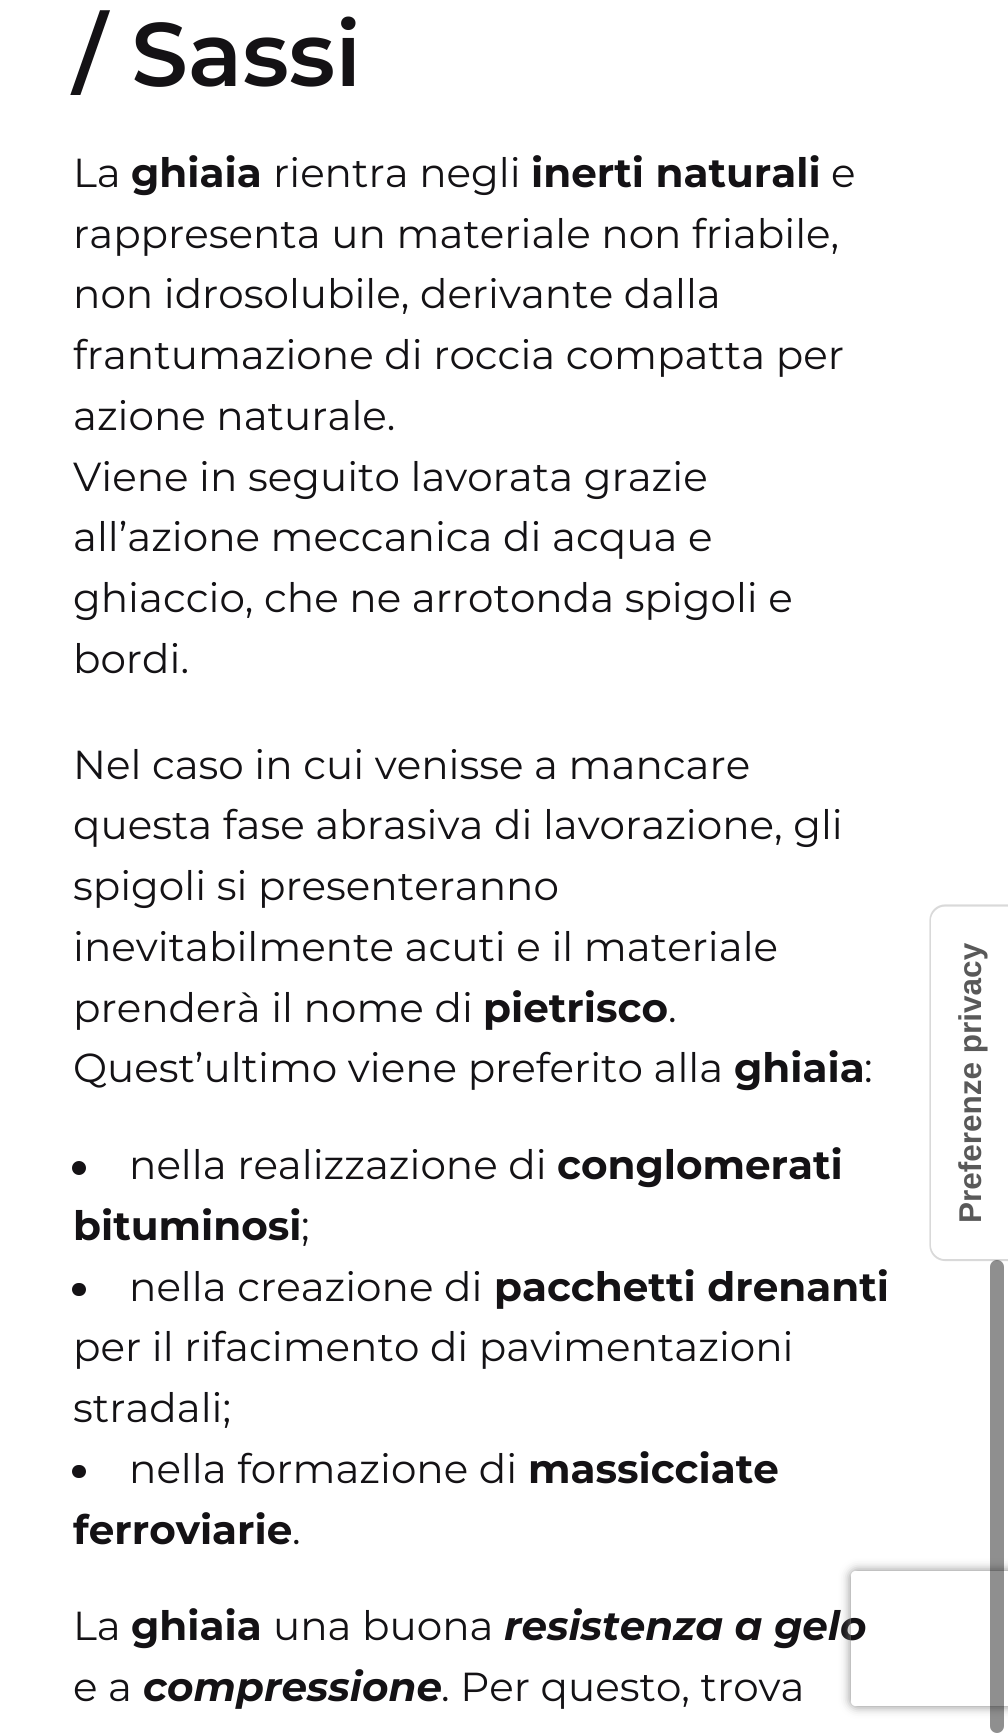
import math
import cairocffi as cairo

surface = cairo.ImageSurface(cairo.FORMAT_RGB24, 1008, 1735)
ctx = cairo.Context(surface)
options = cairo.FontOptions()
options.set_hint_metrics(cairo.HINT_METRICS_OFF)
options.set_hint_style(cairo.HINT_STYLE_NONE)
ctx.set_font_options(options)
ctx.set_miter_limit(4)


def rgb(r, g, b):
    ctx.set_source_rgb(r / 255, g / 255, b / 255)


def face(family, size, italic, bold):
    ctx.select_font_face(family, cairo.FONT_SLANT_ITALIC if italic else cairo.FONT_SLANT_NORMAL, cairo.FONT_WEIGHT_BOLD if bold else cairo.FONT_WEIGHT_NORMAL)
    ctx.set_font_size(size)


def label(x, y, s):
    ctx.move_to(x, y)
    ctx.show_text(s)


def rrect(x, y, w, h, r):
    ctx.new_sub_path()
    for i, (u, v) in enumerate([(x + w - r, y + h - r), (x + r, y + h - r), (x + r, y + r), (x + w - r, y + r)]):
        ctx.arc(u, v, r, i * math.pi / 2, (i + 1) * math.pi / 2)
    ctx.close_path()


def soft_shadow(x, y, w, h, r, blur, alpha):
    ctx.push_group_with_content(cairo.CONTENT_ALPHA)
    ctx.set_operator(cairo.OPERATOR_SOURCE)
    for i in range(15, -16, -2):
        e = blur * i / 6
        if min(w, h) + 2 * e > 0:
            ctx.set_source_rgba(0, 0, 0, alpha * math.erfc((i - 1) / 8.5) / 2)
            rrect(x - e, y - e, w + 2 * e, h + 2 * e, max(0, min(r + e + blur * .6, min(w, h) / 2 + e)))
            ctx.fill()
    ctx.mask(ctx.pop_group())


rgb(255, 255, 255)
ctx.paint()
face('Montserrat SemiBold', 90, 0, 0)
rgb(20, 18, 21)
label(73, 86, '/ Sassi')
face('Montserrat', 40.5, 0, 0)
label(73, 187, 'La')
face('Montserrat', 40.5, 0, 1)
label(131, 187, 'ghiaia')
face('Montserrat', 40.5, 0, 0)
label(273, 187, 'rientra negli')
face('Montserrat', 40.5, 0, 1)
label(531, 187, 'inerti naturali')
face('Montserrat', 40.5, 0, 0)
label(831, 187, 'e')
label(73, 248, 'rappresenta un materiale non friabile,')
label(73, 308, 'non idrosolubile, derivante dalla')
label(73, 369, 'frantumazione di roccia compatta per')
label(73, 430, 'azione naturale.')
label(73, 491, 'Viene in seguito lavorata grazie')
label(73, 551, 'all’azione meccanica di acqua e')
label(73, 612, 'ghiaccio, che ne arrotonda spigoli e')
label(73, 673, 'bordi.')
label(73, 779, 'Nel caso in cui venisse a mancare')
label(73, 839, 'questa fase abrasiva di lavorazione, gli')
label(73, 900, 'spigoli si presenteranno')
label(73, 961, 'inevitabilmente acuti e il materiale')
label(73, 1022, 'prenderà il nome di')
face('Montserrat', 40.5, 0, 1)
label(483, 1022, 'pietrisco')
face('Montserrat', 40.5, 0, 0)
label(668, 1022, '.')
label(73, 1082, 'Quest’ultimo viene preferito alla')
face('Montserrat', 40.5, 0, 1)
label(734, 1082, 'ghiaia')
face('Montserrat', 40.5, 0, 0)
label(864, 1082, ':')
ctx.new_path()
ctx.arc(79, 1168, 7, 0, 2 * math.pi)
ctx.fill()
label(129, 1179, 'nella realizzazione di')
face('Montserrat', 40.5, 0, 1)
label(557, 1179, 'conglomerati')
label(73, 1240, 'bituminosi')
face('Montserrat', 40.5, 0, 0)
label(301, 1240, ';')
rrect(72, 1283, 14, 13, 6.5)
ctx.fill()
label(129, 1301, 'nella creazione di')
face('Montserrat', 40.5, 0, 1)
label(494, 1301, 'pacchetti drenanti')
face('Montserrat', 40.5, 0, 0)
label(73, 1361, 'per il rifacimento di pavimentazioni')
label(73, 1422, 'stradali;')
rrect(72, 1465, 14, 13, 6.5)
ctx.fill()
label(129, 1483, 'nella formazione di')
face('Montserrat', 40.5, 0, 1)
label(528, 1483, 'massicciate')
label(73, 1544, 'ferroviarie')
face('Montserrat', 40.5, 0, 0)
label(292, 1544, '.')
label(73, 1640, 'La')
face('Montserrat', 40.5, 0, 1)
label(131, 1640, 'ghiaia')
face('Montserrat', 40.5, 0, 0)
label(273, 1640, 'una buona')
face('Montserrat', 40.5, 1, 1)
label(504, 1640, 'resistenza a gelo')
face('Montserrat', 40.5, 0, 0)
label(73, 1701, 'e a')
face('Montserrat', 40.5, 1, 1)
label(143, 1701, 'compressione')
face('Montserrat', 40.5, 0, 0)
label(441, 1701, '. Per questo, trova')
ctx.save()
ctx.set_fill_rule(cairo.FILL_RULE_EVEN_ODD)
ctx.new_path()
ctx.move_to(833, 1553)
ctx.line_to(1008, 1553)
ctx.line_to(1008, 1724)
ctx.line_to(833, 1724)
ctx.close_path()
ctx.move_to(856, 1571)
ctx.line_to(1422, 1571)
ctx.curve_to(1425, 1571, 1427, 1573, 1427, 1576)
ctx.line_to(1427, 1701)
ctx.curve_to(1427, 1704, 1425, 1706, 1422, 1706)
ctx.line_to(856, 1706)
ctx.curve_to(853, 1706, 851, 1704, 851, 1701)
ctx.line_to(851, 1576)
ctx.curve_to(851, 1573, 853, 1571, 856, 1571)
ctx.close_path()
ctx.clip()
rgb(128, 128, 128)
soft_shadow(851, 1571, 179, 135, 5, 5.5, 1)
ctx.restore()
ctx.set_source_rgba(0, 0, 0, 0.44)
rrect(990, 1260, 14, 473, 7)
ctx.fill()
ctx.new_path()
ctx.move_to(930.5, 1245.5)
ctx.line_to(930.5, 920)
ctx.curve_to(930.5, 912, 937, 905.5, 945, 905.5)
ctx.line_to(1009, 905.5)
ctx.line_to(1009, 1260)
ctx.line_to(945, 1260)
ctx.curve_to(937, 1260, 930.5, 1253.5, 930.5, 1245.5)
ctx.close_path()
ctx.set_source_rgba(0, 0, 0, 0.15)
ctx.set_line_width(2.2)
ctx.stroke()
rgb(255, 255, 255)
ctx.new_path()
ctx.move_to(931, 1245)
ctx.line_to(931, 920)
ctx.curve_to(931, 913, 938, 907, 945, 907)
ctx.line_to(1008, 907)
ctx.line_to(1008, 1259)
ctx.line_to(945, 1259)
ctx.curve_to(938, 1259, 931, 1253, 931, 1245)
ctx.close_path()
ctx.fill()
face('Liberation Sans', 31.5, 0, 1)
rgb(89, 89, 89)
ctx.save()
ctx.translate(981, 1223)
ctx.rotate(-90 * math.pi / 180)
label(0, 0, 'Preferenze privacy')
ctx.restore()
surface.write_to_png('render.png')
